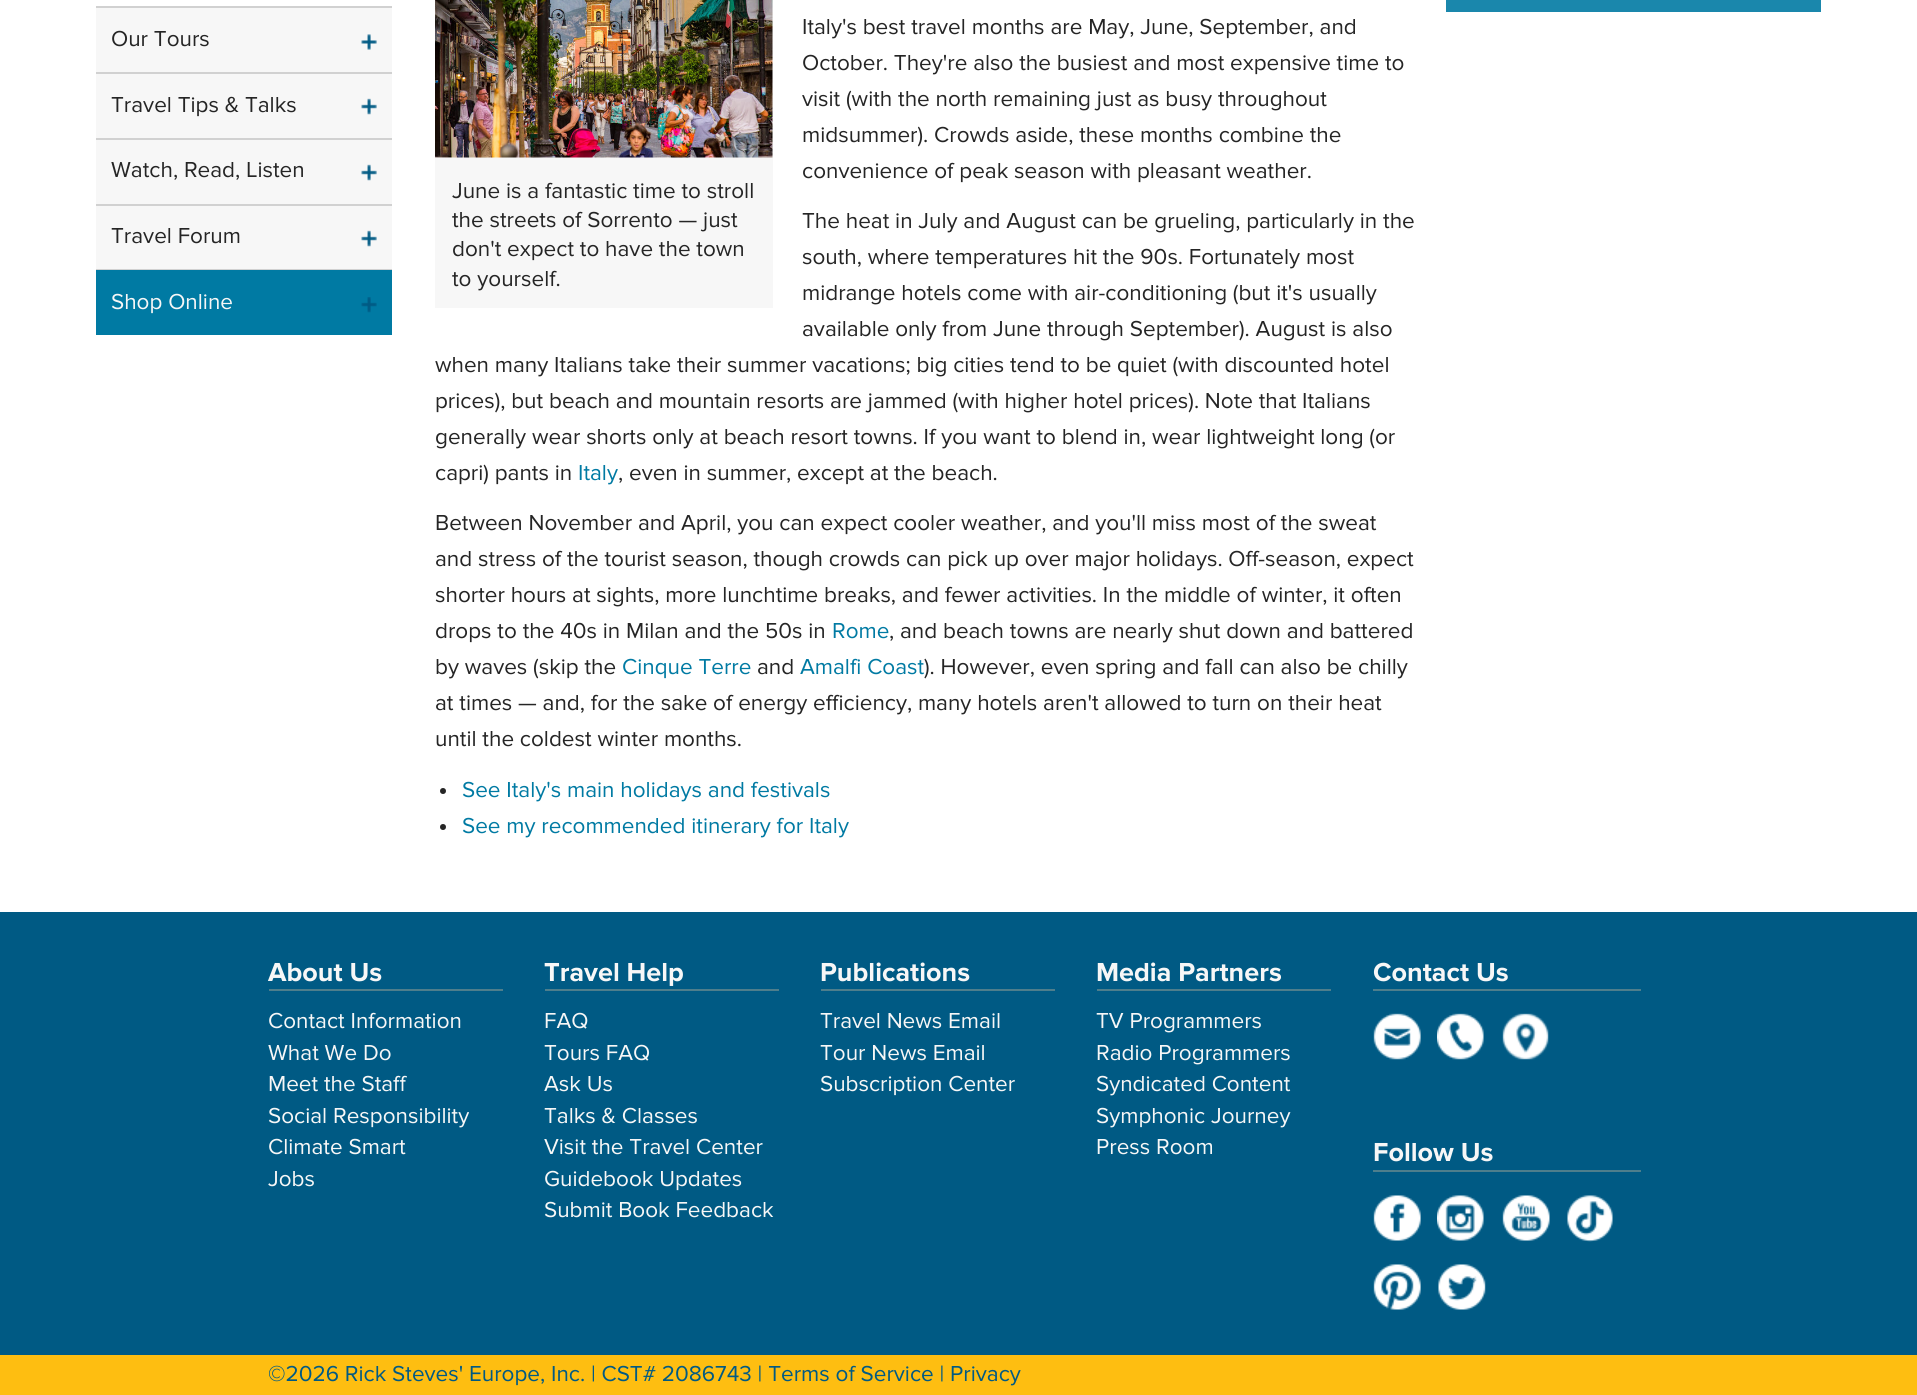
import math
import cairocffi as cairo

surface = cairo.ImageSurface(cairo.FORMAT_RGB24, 1917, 1395)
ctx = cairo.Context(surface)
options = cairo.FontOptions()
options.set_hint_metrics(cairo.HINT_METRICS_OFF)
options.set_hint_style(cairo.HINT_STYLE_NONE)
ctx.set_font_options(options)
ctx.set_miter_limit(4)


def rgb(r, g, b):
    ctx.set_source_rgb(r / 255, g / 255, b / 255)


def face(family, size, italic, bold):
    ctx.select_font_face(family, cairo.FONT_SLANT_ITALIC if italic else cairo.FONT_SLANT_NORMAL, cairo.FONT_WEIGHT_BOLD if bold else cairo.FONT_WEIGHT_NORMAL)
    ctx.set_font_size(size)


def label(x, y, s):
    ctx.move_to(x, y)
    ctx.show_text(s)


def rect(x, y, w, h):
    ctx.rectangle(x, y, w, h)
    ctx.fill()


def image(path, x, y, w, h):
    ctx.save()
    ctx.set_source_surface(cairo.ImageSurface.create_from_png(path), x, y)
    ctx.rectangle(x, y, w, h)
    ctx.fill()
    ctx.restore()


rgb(255, 255, 255)
ctx.paint()
rgb(247, 247, 247)
rect(96, 8, 296, 261)
rgb(209, 209, 209)
rect(96, 6, 296, 2)
rect(96, 72, 296, 2)
face('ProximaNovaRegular', 22.5, 0, 0)
rgb(37, 37, 37)
label(111, 46, 'Our Tours')
image('image0.png', 361, 34, 16, 16)
rgb(209, 209, 209)
rect(96, 138, 296, 2)
rgb(37, 37, 37)
label(111, 112, 'Travel Tips & Talks')
image('image1.png', 361, 98, 16, 17)
rgb(209, 209, 209)
rect(96, 204, 296, 2)
rgb(37, 37, 37)
label(111, 177, 'Watch, Read, Listen')
image('image1.png', 361, 164, 16, 17)
rgb(209, 209, 209)
rect(96, 269, 296, 1)
rgb(37, 37, 37)
label(111, 243, 'Travel Forum')
image('image1.png', 361, 230, 16, 17)
rgb(0, 122, 163)
rect(96, 270, 296, 65)
rgb(247, 247, 247)
label(111, 309, 'Shop Online')
image('image2.png', 361, 297, 16, 16)
rgb(26, 135, 172)
rect(1446, 0, 375, 12)
rgb(37, 37, 37)
label(802, 34, 'Italy\'s best travel months are May, June, September, and')
label(802, 70, 'October. They\'re also the busiest and most expensive time to')
label(802, 106, 'visit (with the north remaining just as busy throughout')
label(802, 142, 'midsummer). Crowds aside, these months combine the')
label(802, 178, 'convenience of peak season with pleasant weather.')
label(802, 228, 'The heat in July and August can be grueling, particularly in the')
label(802, 264, 'south, where temperatures hit the 90s. Fortunately most')
label(802, 300, 'midrange hotels come with air-conditioning (but it\'s usually')
label(802, 336, 'available only from June through September). August is also')
label(435, 372, 'when many Italians take their summer vacations; big cities tend to be quiet (with discounted hotel')
label(435, 408, 'prices), but beach and mountain resorts are jammed (with higher hotel prices). Note that Italians')
label(435, 444, 'generally wear shorts only at beach resort towns. If you want to blend in, wear lightweight long (or')
label(435, 480, 'capri) pants in')
rgb(0, 122, 163)
label(578, 480, 'Italy')
rgb(37, 37, 37)
label(618, 480, ', even in summer, except at the beach.')
label(435, 530, 'Between November and April, you can expect cooler weather, and you\'ll miss most of the sweat')
label(435, 566, 'and stress of the tourist season, though crowds can pick up over major holidays. Off-season, expect')
label(435, 602, 'shorter hours at sights, more lunchtime breaks, and fewer activities. In the middle of winter, it often')
label(435, 638, 'drops to the 40s in Milan and the 50s in')
rgb(0, 122, 163)
label(832, 638, 'Rome')
rgb(37, 37, 37)
label(889, 638, ', and beach towns are nearly shut down and battered')
label(435, 674, 'by waves (skip the')
rgb(0, 122, 163)
label(622, 674, 'Cinque Terre')
rgb(37, 37, 37)
label(757, 674, 'and')
rgb(0, 122, 163)
label(800, 674, 'Amalfi Coast')
rgb(37, 37, 37)
label(924, 674, '). However, even spring and fall can also be chilly')
label(435, 710, 'at times — and, for the sake of energy efficiency, many hotels aren\'t allowed to turn on their heat')
label(435, 746, 'until the coldest winter months.')
ctx.new_path()
ctx.arc(443, 791, 3, 0, 2 * math.pi)
ctx.fill()
rgb(0, 122, 163)
label(462, 797, 'See Italy\'s main holidays and festivals')
rgb(37, 37, 37)
ctx.new_path()
ctx.arc(443, 827, 3, 0, 2 * math.pi)
ctx.fill()
rgb(0, 122, 163)
label(462, 833, 'See my recommended itinerary for Italy')
rgb(247, 247, 247)
rect(435, 0, 338, 308)
image('image3.png', 435, 0, 338, 158)
rgb(37, 37, 37)
label(452, 198, 'June is a fantastic time to stroll')
label(452, 227, 'the streets of Sorrento — just')
label(452, 256, 'don\'t expect to have the town')
label(452, 286, 'to yourself.')
rgb(0, 90, 132)
rect(0, 912, 1917, 443)
rgb(78, 126, 140)
rect(269, 989, 234, 2)
face('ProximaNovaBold', 27, 0, 1)
rgb(247, 247, 247)
label(268, 981, 'About Us')
face('ProximaNovaRegular', 22.5, 0, 0)
label(268, 1028, 'Contact Information')
label(268, 1060, 'What We Do')
label(268, 1091, 'Meet the Staff')
label(268, 1123, 'Social Responsibility')
label(268, 1154, 'Climate Smart')
label(268, 1186, 'Jobs')
rgb(78, 126, 140)
rect(545, 989, 234, 2)
face('ProximaNovaBold', 27, 0, 1)
rgb(247, 247, 247)
label(544, 981, 'Travel Help')
face('ProximaNovaRegular', 22.5, 0, 0)
label(544, 1028, 'FAQ')
label(544, 1060, 'Tours FAQ')
label(544, 1091, 'Ask Us')
label(544, 1123, 'Talks & Classes')
label(544, 1154, 'Visit the Travel Center')
label(544, 1186, 'Guidebook Updates')
label(544, 1217, 'Submit Book Feedback')
rgb(78, 126, 140)
rect(821, 989, 234, 2)
face('ProximaNovaBold', 27, 0, 1)
rgb(247, 247, 247)
label(820, 981, 'Publications')
face('ProximaNovaRegular', 22.5, 0, 0)
label(820, 1028, 'Travel News Email')
label(820, 1060, 'Tour News Email')
label(820, 1091, 'Subscription Center')
rgb(78, 126, 140)
rect(1097, 989, 234, 2)
face('ProximaNovaBold', 27, 0, 1)
rgb(247, 247, 247)
label(1096, 981, 'Media Partners')
face('ProximaNovaRegular', 22.5, 0, 0)
label(1096, 1028, 'TV Programmers')
label(1096, 1060, 'Radio Programmers')
label(1096, 1091, 'Syndicated Content')
label(1096, 1123, 'Symphonic Journey')
label(1096, 1154, 'Press Room')
rgb(78, 126, 140)
rect(1373, 989, 268, 2)
face('ProximaNovaBold', 27, 0, 1)
rgb(247, 247, 247)
label(1373, 981, 'Contact Us')
image('image4.png', 1373, 1013, 48, 47)
image('image5.png', 1437, 1013, 47, 47)
image('image6.png', 1502, 1013, 47, 47)
rgb(78, 126, 140)
rect(1373, 1170, 268, 2)
rgb(247, 247, 247)
label(1373, 1161, 'Follow Us')
image('image7.png', 1373, 1195, 48, 46)
image('image8.png', 1437, 1195, 47, 46)
image('image9.png', 1502, 1195, 48, 46)
image('image10.png', 1567, 1195, 46, 47)
image('image11.png', 1373, 1264, 48, 46)
image('image12.png', 1438, 1264, 48, 46)
rgb(254, 190, 17)
rect(0, 1355, 1917, 40)
face('ProximaNovaRegular', 22.5, 0, 0)
rgb(0, 90, 132)
label(268, 1381, '©2026 Rick Steves\' Europe, Inc. | CST# 2086743 | Terms of Service | Privacy')
surface.write_to_png('render.png')
